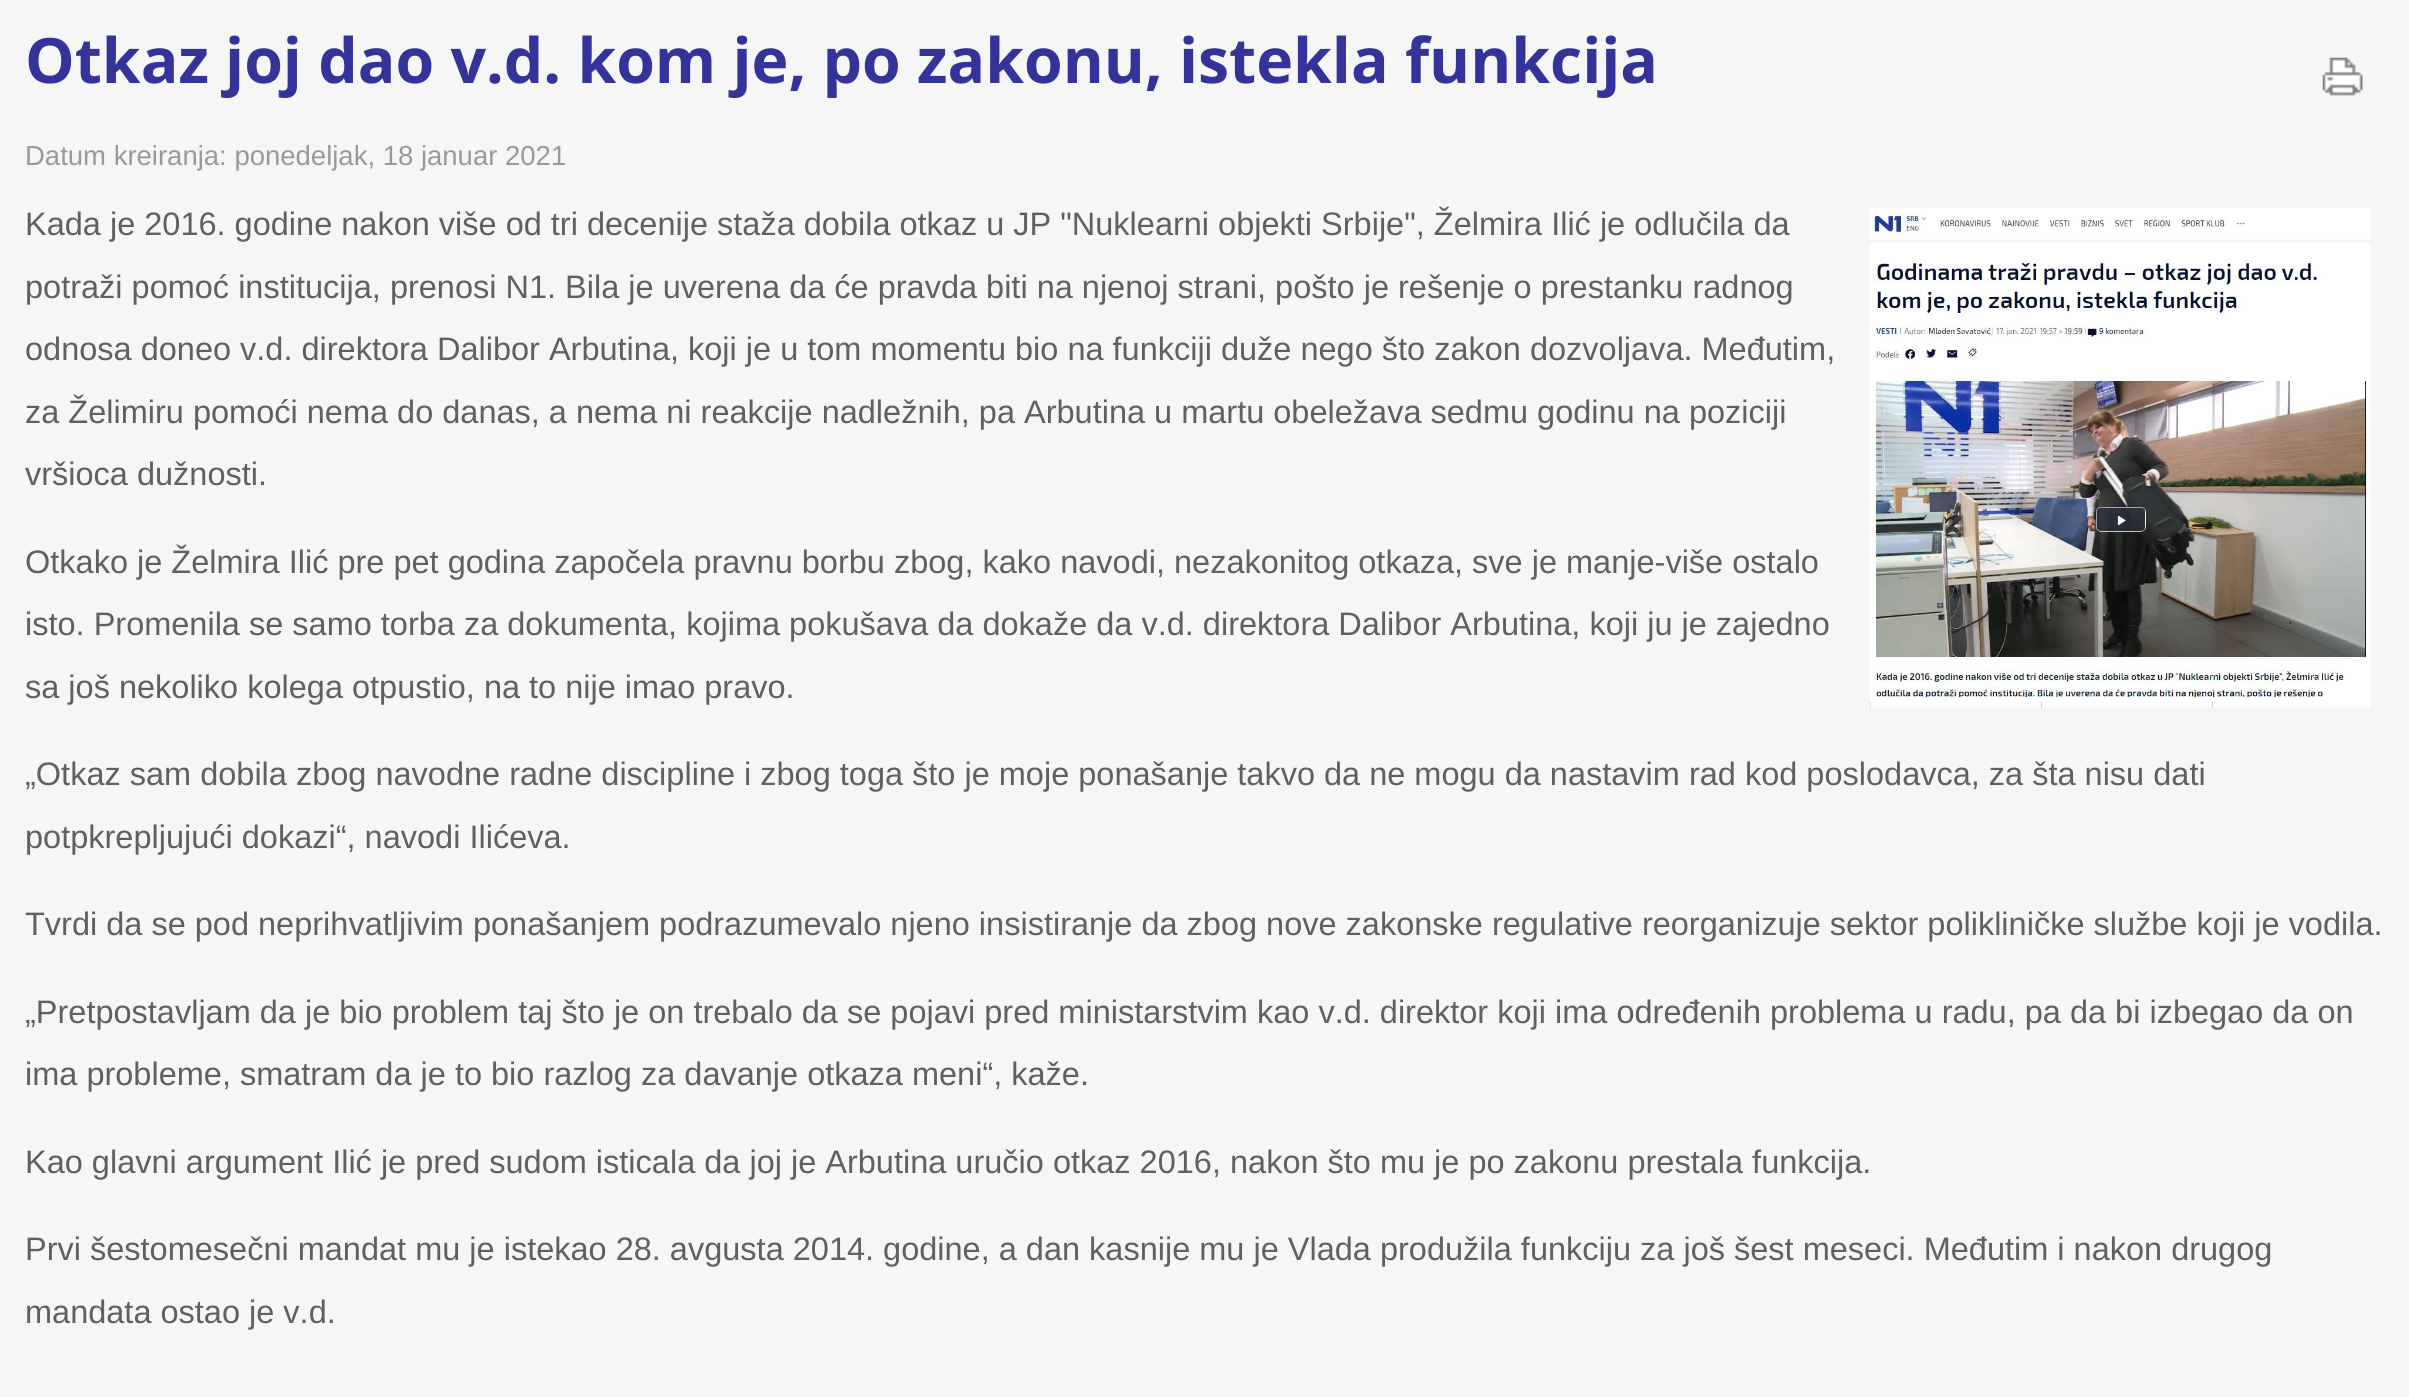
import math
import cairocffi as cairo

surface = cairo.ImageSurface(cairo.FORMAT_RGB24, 2409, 1397)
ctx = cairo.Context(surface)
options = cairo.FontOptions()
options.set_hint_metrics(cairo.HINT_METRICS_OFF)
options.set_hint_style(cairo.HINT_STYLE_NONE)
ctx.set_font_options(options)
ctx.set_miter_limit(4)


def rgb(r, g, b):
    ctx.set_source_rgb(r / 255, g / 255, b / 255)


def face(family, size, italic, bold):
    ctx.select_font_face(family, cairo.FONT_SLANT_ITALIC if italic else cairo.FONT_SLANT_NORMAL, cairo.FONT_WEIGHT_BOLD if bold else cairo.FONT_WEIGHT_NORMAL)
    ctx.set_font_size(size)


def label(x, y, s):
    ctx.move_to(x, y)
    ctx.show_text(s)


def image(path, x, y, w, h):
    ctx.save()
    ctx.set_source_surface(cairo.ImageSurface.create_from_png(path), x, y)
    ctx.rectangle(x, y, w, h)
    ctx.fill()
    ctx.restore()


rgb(246, 246, 246)
ctx.paint()
face('Open Sans', 62.5, 0, 1)
rgb(51, 51, 153)
label(25, 83, 'Otkaz joj dao v.d. kom je, po zakonu, istekla funkcija')
image('image0.png', 2322, 57, 41, 39)
face('Liberation Sans', 27.5, 0, 0)
rgb(153, 153, 153)
label(25, 165, 'Datum kreiranja: ponedeljak, 18 januar 2021')
face('Liberation Sans', 32.5, 0, 0)
rgb(96, 96, 96)
label(25, 235, 'Kada je 2016. godine nakon više od tri decenije staža dobila otkaz u JP "Nuklearni objekti Srbije", Želmira Ilić je odlučila da')
image('image1.png', 1870, 207, 500, 501)
label(25, 298, 'potraži pomoć institucija, prenosi N1. Bila je uverena da će pravda biti na njenoj strani, pošto je rešenje o prestanku radnog')
label(25, 360, 'odnosa doneo v.d. direktora Dalibor Arbutina, koji je u tom momentu bio na funkciji duže nego što zakon dozvoljava. Međutim,')
label(25, 423, 'za Želimiru pomoći nema do danas, a nema ni reakcije nadležnih, pa Arbutina u martu obeležava sedmu godinu na poziciji')
label(25, 485, 'vršioca dužnosti.')
label(25, 573, 'Otkako je Želmira Ilić pre pet godina započela pravnu borbu zbog, kako navodi, nezakonitog otkaza, sve je manje-više ostalo')
label(25, 635, 'isto. Promenila se samo torba za dokumenta, kojima pokušava da dokaže da v.d. direktora Dalibor Arbutina, koji ju je zajedno')
label(25, 698, 'sa još nekoliko kolega otpustio, na to nije imao pravo.')
label(25, 785, '„Otkaz sam dobila zbog navodne radne discipline i zbog toga što je moje ponašanje takvo da ne mogu da nastavim rad kod poslodavca, za šta nisu dati')
label(25, 848, 'potpkrepljujući dokazi“, navodi Ilićeva.')
label(25, 935, 'Tvrdi da se pod neprihvatljivim ponašanjem podrazumevalo njeno insistiranje da zbog nove zakonske regulative reorganizuje sektor polikliničke službe koji je vodila.')
label(25, 1023, '„Pretpostavljam da je bio problem taj što je on trebalo da se pojavi pred ministarstvim kao v.d. direktor koji ima određenih problema u radu, pa da bi izbegao da on')
label(25, 1085, 'ima probleme, smatram da je to bio razlog za davanje otkaza meni“, kaže.')
label(25, 1173, 'Kao glavni argument Ilić je pred sudom isticala da joj je Arbutina uručio otkaz 2016, nakon što mu je po zakonu prestala funkcija.')
label(25, 1260, 'Prvi šestomesečni mandat mu je istekao 28. avgusta 2014. godine, a dan kasnije mu je Vlada produžila funkciju za još šest meseci. Međutim i nakon drugog')
label(25, 1323, 'mandata ostao je v.d.')
surface.write_to_png('render.png')
